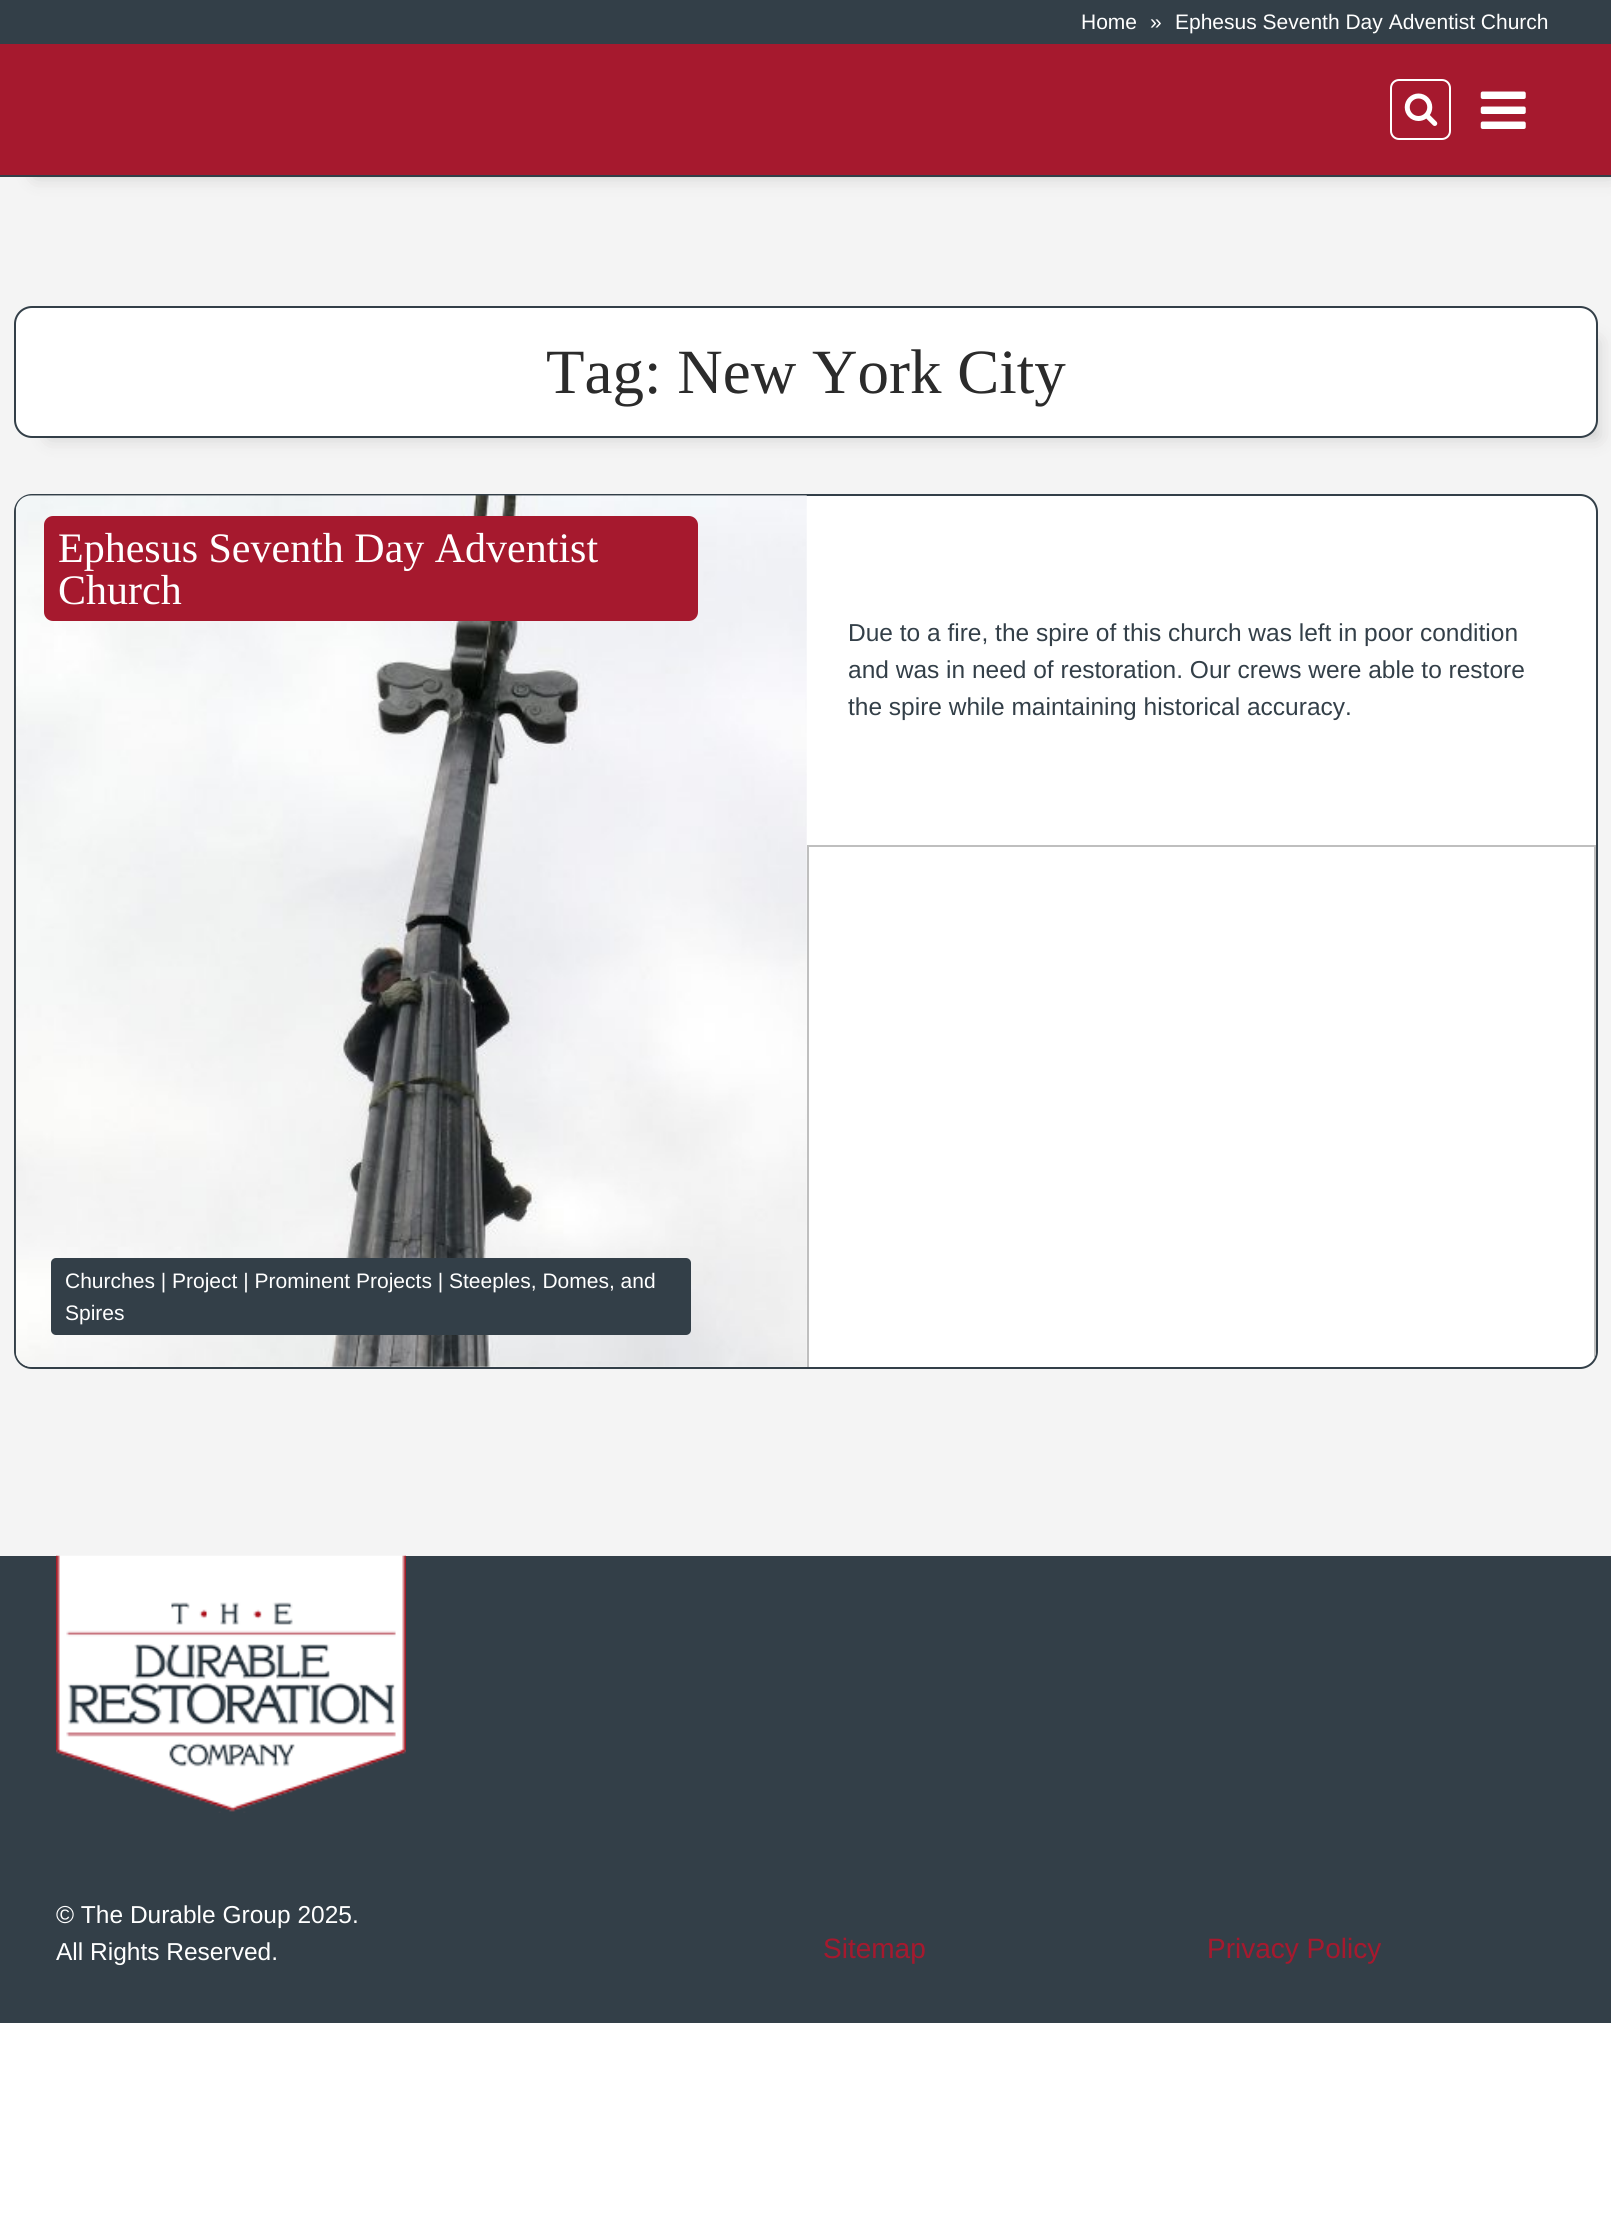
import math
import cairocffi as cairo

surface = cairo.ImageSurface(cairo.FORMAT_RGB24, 1611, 2232)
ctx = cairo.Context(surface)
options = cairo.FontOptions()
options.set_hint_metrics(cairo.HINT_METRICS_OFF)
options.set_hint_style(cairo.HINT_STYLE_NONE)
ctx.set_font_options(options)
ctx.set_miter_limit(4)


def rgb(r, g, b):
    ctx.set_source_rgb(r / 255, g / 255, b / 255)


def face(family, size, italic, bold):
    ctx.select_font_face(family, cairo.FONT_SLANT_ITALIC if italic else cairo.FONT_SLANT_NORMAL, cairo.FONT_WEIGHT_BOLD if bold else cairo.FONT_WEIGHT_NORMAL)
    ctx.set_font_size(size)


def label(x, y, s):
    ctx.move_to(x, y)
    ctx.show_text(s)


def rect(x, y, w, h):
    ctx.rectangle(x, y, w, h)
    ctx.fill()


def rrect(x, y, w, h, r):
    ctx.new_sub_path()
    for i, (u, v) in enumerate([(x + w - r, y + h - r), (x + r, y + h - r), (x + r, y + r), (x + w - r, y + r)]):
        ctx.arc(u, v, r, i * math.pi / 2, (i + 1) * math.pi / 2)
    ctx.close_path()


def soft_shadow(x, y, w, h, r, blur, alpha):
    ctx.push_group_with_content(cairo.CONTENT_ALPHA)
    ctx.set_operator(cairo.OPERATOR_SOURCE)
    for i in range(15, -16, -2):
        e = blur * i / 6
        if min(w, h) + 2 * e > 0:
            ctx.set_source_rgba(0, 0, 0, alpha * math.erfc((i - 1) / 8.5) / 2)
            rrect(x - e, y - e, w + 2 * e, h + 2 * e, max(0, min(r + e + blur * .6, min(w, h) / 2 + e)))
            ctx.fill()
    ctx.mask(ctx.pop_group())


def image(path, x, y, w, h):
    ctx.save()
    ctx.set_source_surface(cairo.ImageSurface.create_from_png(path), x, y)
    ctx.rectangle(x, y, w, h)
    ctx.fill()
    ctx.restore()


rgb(255, 255, 255)
ctx.paint()
rgb(244, 244, 244)
rect(0, 177, 1611, 1379)
rgb(49, 47, 47)
soft_shadow(35, 35, 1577, 142, 0, 9, 0.2)
rgb(51, 63, 72)
rect(0, 175, 1611, 2)
rect(0, 0, 1611, 44)
face('Liberation Sans', 21, 0, 0)
rgb(255, 255, 255)
label(1081, 29, 'Home')
label(1150, 29, '»')
label(1175, 29, 'Ephesus Seventh Day Adventist Church')
rgb(166, 25, 46)
rect(0, 44, 1611, 131)
rrect(1391, 80, 59, 59, 8)
rgb(255, 255, 255)
ctx.stroke()
image('image0.png', 1404, 93, 34, 33)
image('image1.png', 1480, 91, 46, 38)
rgb(49, 47, 47)
soft_shadow(49, 341, 1549, 97, 0, 9, 0.2)
rgb(255, 255, 255)
rrect(15, 307, 1582, 130, 17)
ctx.fill_preserve()
rgb(51, 63, 72)
ctx.stroke()
face('Liberation Serif', 63, 0, 0)
rgb(43, 43, 43)
label(546, 393, 'Tag: New York City')
rgb(255, 255, 255)
rrect(15, 495, 1582, 873, 17)
ctx.fill_preserve()
rgb(51, 63, 72)
ctx.stroke()
image('image2.png', 15, 495, 792, 872)
rgb(166, 25, 46)
rrect(44, 516, 654, 105, 9)
ctx.fill()
face('Liberation Serif', 42, 0, 0)
rgb(255, 255, 255)
label(58, 562, 'Ephesus Seventh Day Adventist')
label(58, 604, 'Church')
rgb(51, 63, 72)
rrect(51, 1258, 640, 77, 5)
ctx.fill()
face('Liberation Sans', 21, 0, 0)
rgb(255, 255, 255)
label(65, 1288, 'Churches | Project | Prominent Projects | Steeples, Domes, and')
label(65, 1320, 'Spires')
face('Liberation Sans', 24.5, 0, 0)
rgb(51, 63, 72)
label(848, 641, 'Due to a fire, the spire of this church was left in poor condition')
label(848, 678, 'and was in need of restoration. Our crews were able to restore')
label(848, 715, 'the spire while maintaining historical accuracy.')
rgb(191, 191, 191)
ctx.new_path()
ctx.move_to(807, 845)
ctx.line_to(807, 1367)
ctx.line_to(809, 1367)
ctx.line_to(809, 847)
ctx.line_to(1594, 847)
ctx.line_to(1594, 1359)
ctx.curve_to(1595, 1356, 1596, 1354, 1596, 1351)
ctx.line_to(1596, 845)
ctx.close_path()
ctx.fill()
rgb(51, 63, 72)
rect(0, 1556, 1611, 467)
image('image3.png', 56, 1555, 350, 258)
rgb(255, 255, 255)
label(56, 1923, '© The Durable Group 2025.')
label(56, 1960, 'All Rights Reserved.')
face('Liberation Sans', 28, 0, 0)
rgb(166, 25, 46)
label(823, 1958, 'Sitemap')
label(1207, 1958, 'Privacy Policy')
surface.write_to_png('render.png')
